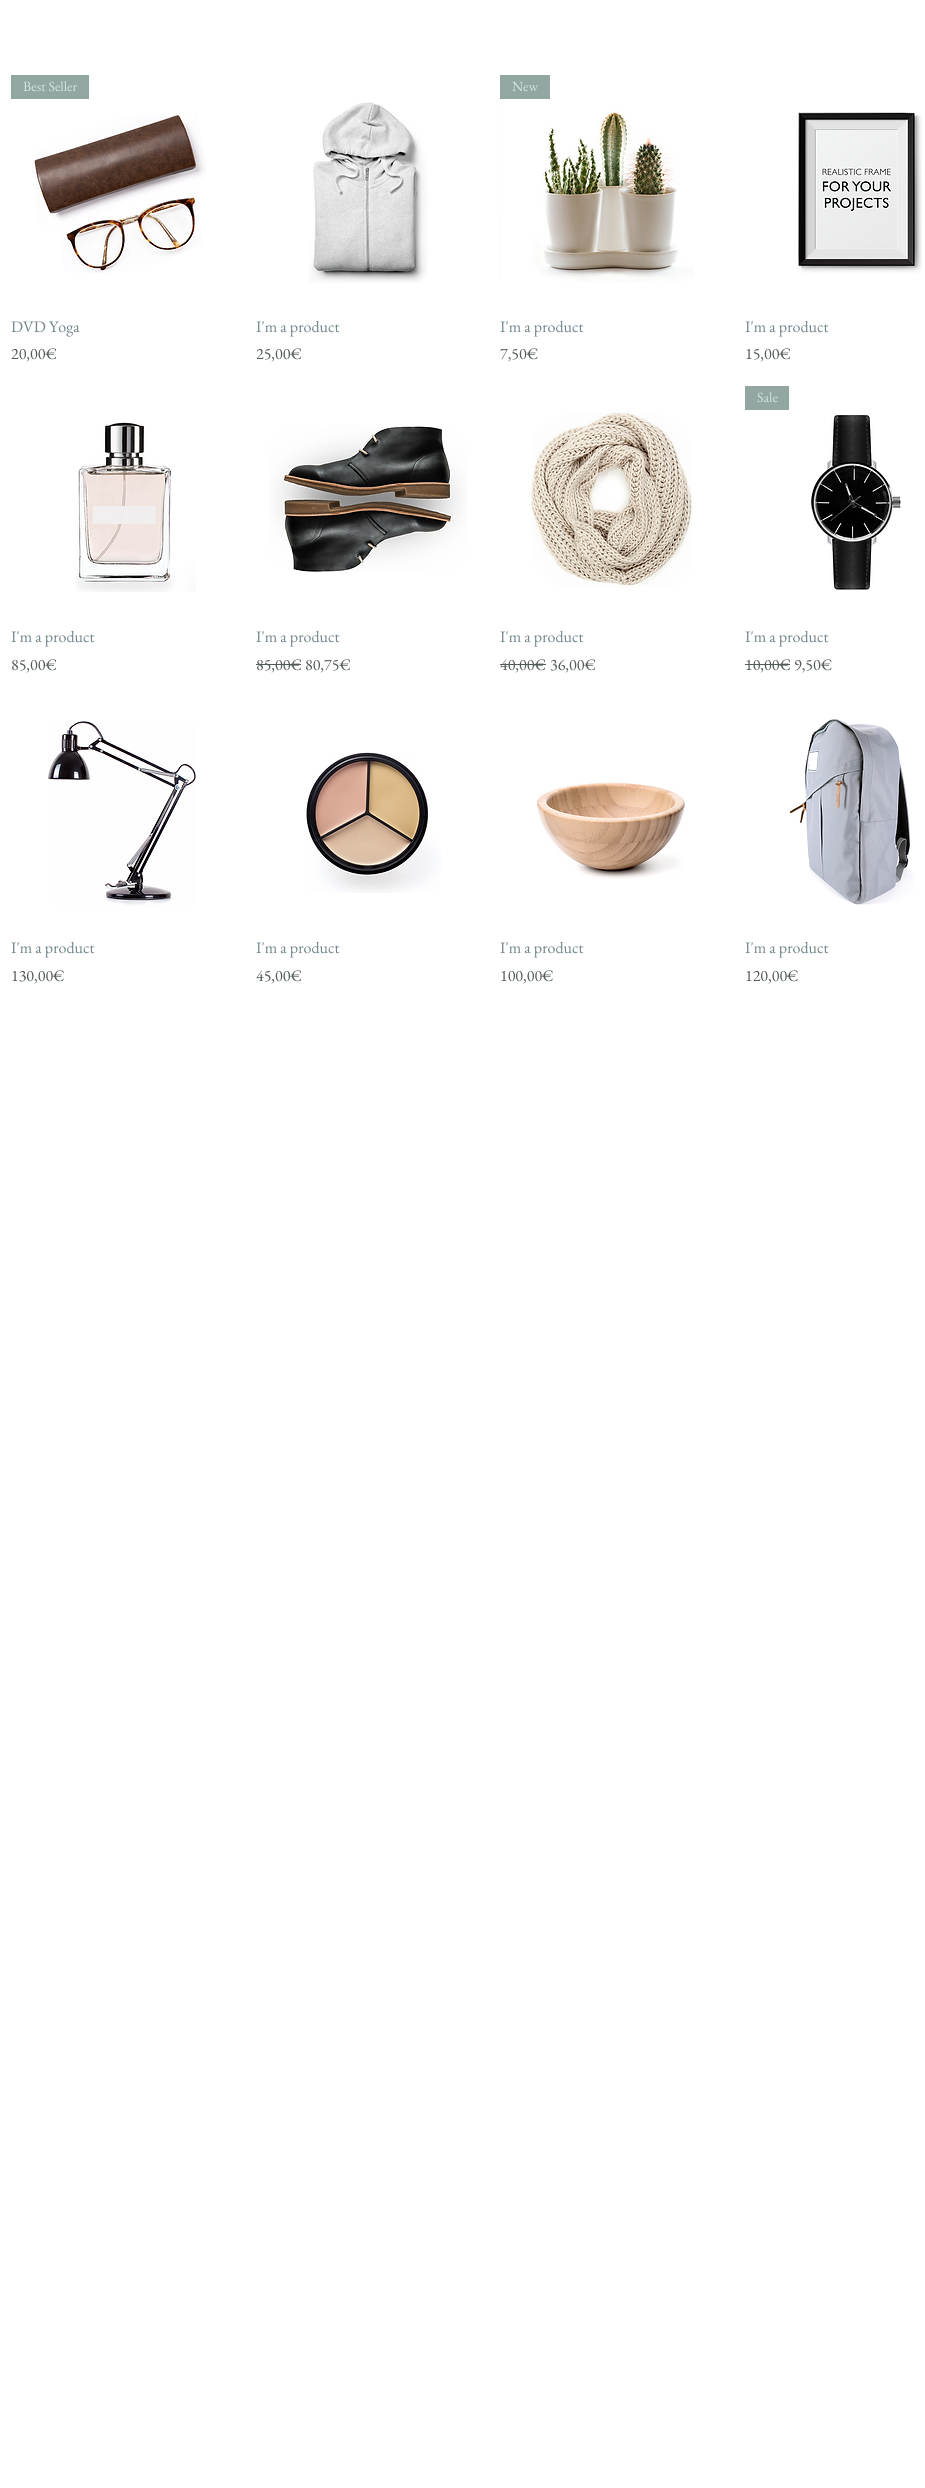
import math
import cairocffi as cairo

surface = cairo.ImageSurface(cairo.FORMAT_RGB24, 925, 2488)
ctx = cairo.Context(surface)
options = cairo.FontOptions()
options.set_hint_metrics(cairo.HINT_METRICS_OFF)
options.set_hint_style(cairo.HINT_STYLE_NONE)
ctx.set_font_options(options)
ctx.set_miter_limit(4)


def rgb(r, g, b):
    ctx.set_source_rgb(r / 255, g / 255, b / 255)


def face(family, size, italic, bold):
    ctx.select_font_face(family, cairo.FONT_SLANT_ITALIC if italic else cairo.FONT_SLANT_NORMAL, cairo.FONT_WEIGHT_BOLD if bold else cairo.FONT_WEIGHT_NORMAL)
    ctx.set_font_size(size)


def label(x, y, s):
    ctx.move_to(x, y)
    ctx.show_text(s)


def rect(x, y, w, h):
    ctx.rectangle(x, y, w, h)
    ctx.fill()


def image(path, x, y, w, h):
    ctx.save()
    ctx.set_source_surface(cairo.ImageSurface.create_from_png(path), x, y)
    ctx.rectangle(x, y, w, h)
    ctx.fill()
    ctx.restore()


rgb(255, 255, 255)
ctx.paint()
rgb(146, 166, 162)
rect(11, 75, 78, 24)
face('EB Garamond', 14, 0, 0)
rgb(208, 229, 222)
label(23, 91, 'Best Seller')
image('image0.png', 32, 113, 174, 160)
face('EB Garamond', 16, 0, 0)
rgb(114, 133, 140)
label(11, 332, 'DVD Yoga')
rgb(83, 91, 88)
label(11, 359, '20,00€')
image('image1.png', 308, 102, 120, 181)
rgb(114, 133, 140)
label(256, 332, 'I\'m a product')
rgb(83, 91, 88)
label(256, 359, '25,00€')
image('image2.png', 500, 80, 194, 203)
rgb(146, 166, 162)
rect(500, 75, 50, 24)
face('EB Garamond', 14, 0, 0)
rgb(208, 229, 222)
label(512, 91, 'New')
face('EB Garamond', 16, 0, 0)
rgb(114, 133, 140)
label(500, 332, 'I\'m a product')
rgb(83, 91, 88)
label(500, 359, '7,50€')
image('image3.png', 798, 112, 124, 161)
rgb(114, 133, 140)
label(745, 332, 'I\'m a product')
rgb(83, 91, 88)
label(745, 359, '15,00€')
image('image4.png', 75, 422, 121, 170)
rgb(114, 133, 140)
label(11, 642, 'I\'m a product')
rgb(83, 91, 88)
label(11, 670, '85,00€')
image('image5.png', 269, 425, 198, 148)
rgb(114, 133, 140)
label(256, 642, 'I\'m a product')
rgb(83, 91, 88)
label(256, 670, '85,00€')
rect(256, 664, 45, 1)
label(305, 670, '80,75€')
image('image6.png', 531, 412, 161, 175)
rgb(114, 133, 140)
label(500, 642, 'I\'m a product')
rgb(83, 91, 88)
label(500, 670, '40,00€')
rect(500, 664, 46, 1)
label(550, 670, '36,00€')
rgb(146, 166, 162)
rect(745, 386, 44, 24)
face('EB Garamond', 14, 0, 0)
rgb(208, 229, 222)
label(757, 402, 'Sale')
image('image7.png', 811, 415, 90, 175)
face('EB Garamond', 16, 0, 0)
rgb(114, 133, 140)
label(745, 642, 'I\'m a product')
rgb(83, 91, 88)
label(745, 670, '10,00€')
rect(745, 664, 45, 1)
label(794, 670, '9,50€')
image('image8.png', 48, 721, 148, 185)
rgb(114, 133, 140)
label(11, 953, 'I\'m a product')
rgb(83, 91, 88)
label(11, 981, '130,00€')
image('image9.png', 304, 752, 137, 141)
rgb(114, 133, 140)
label(256, 953, 'I\'m a product')
rgb(83, 91, 88)
label(256, 981, '45,00€')
image('image10.png', 536, 782, 149, 97)
rgb(114, 133, 140)
label(500, 953, 'I\'m a product')
rgb(83, 91, 88)
label(500, 981, '100,00€')
image('image11.png', 789, 719, 125, 186)
rgb(114, 133, 140)
label(745, 953, 'I\'m a product')
rgb(83, 91, 88)
label(745, 981, '120,00€')
surface.write_to_png('render.png')
